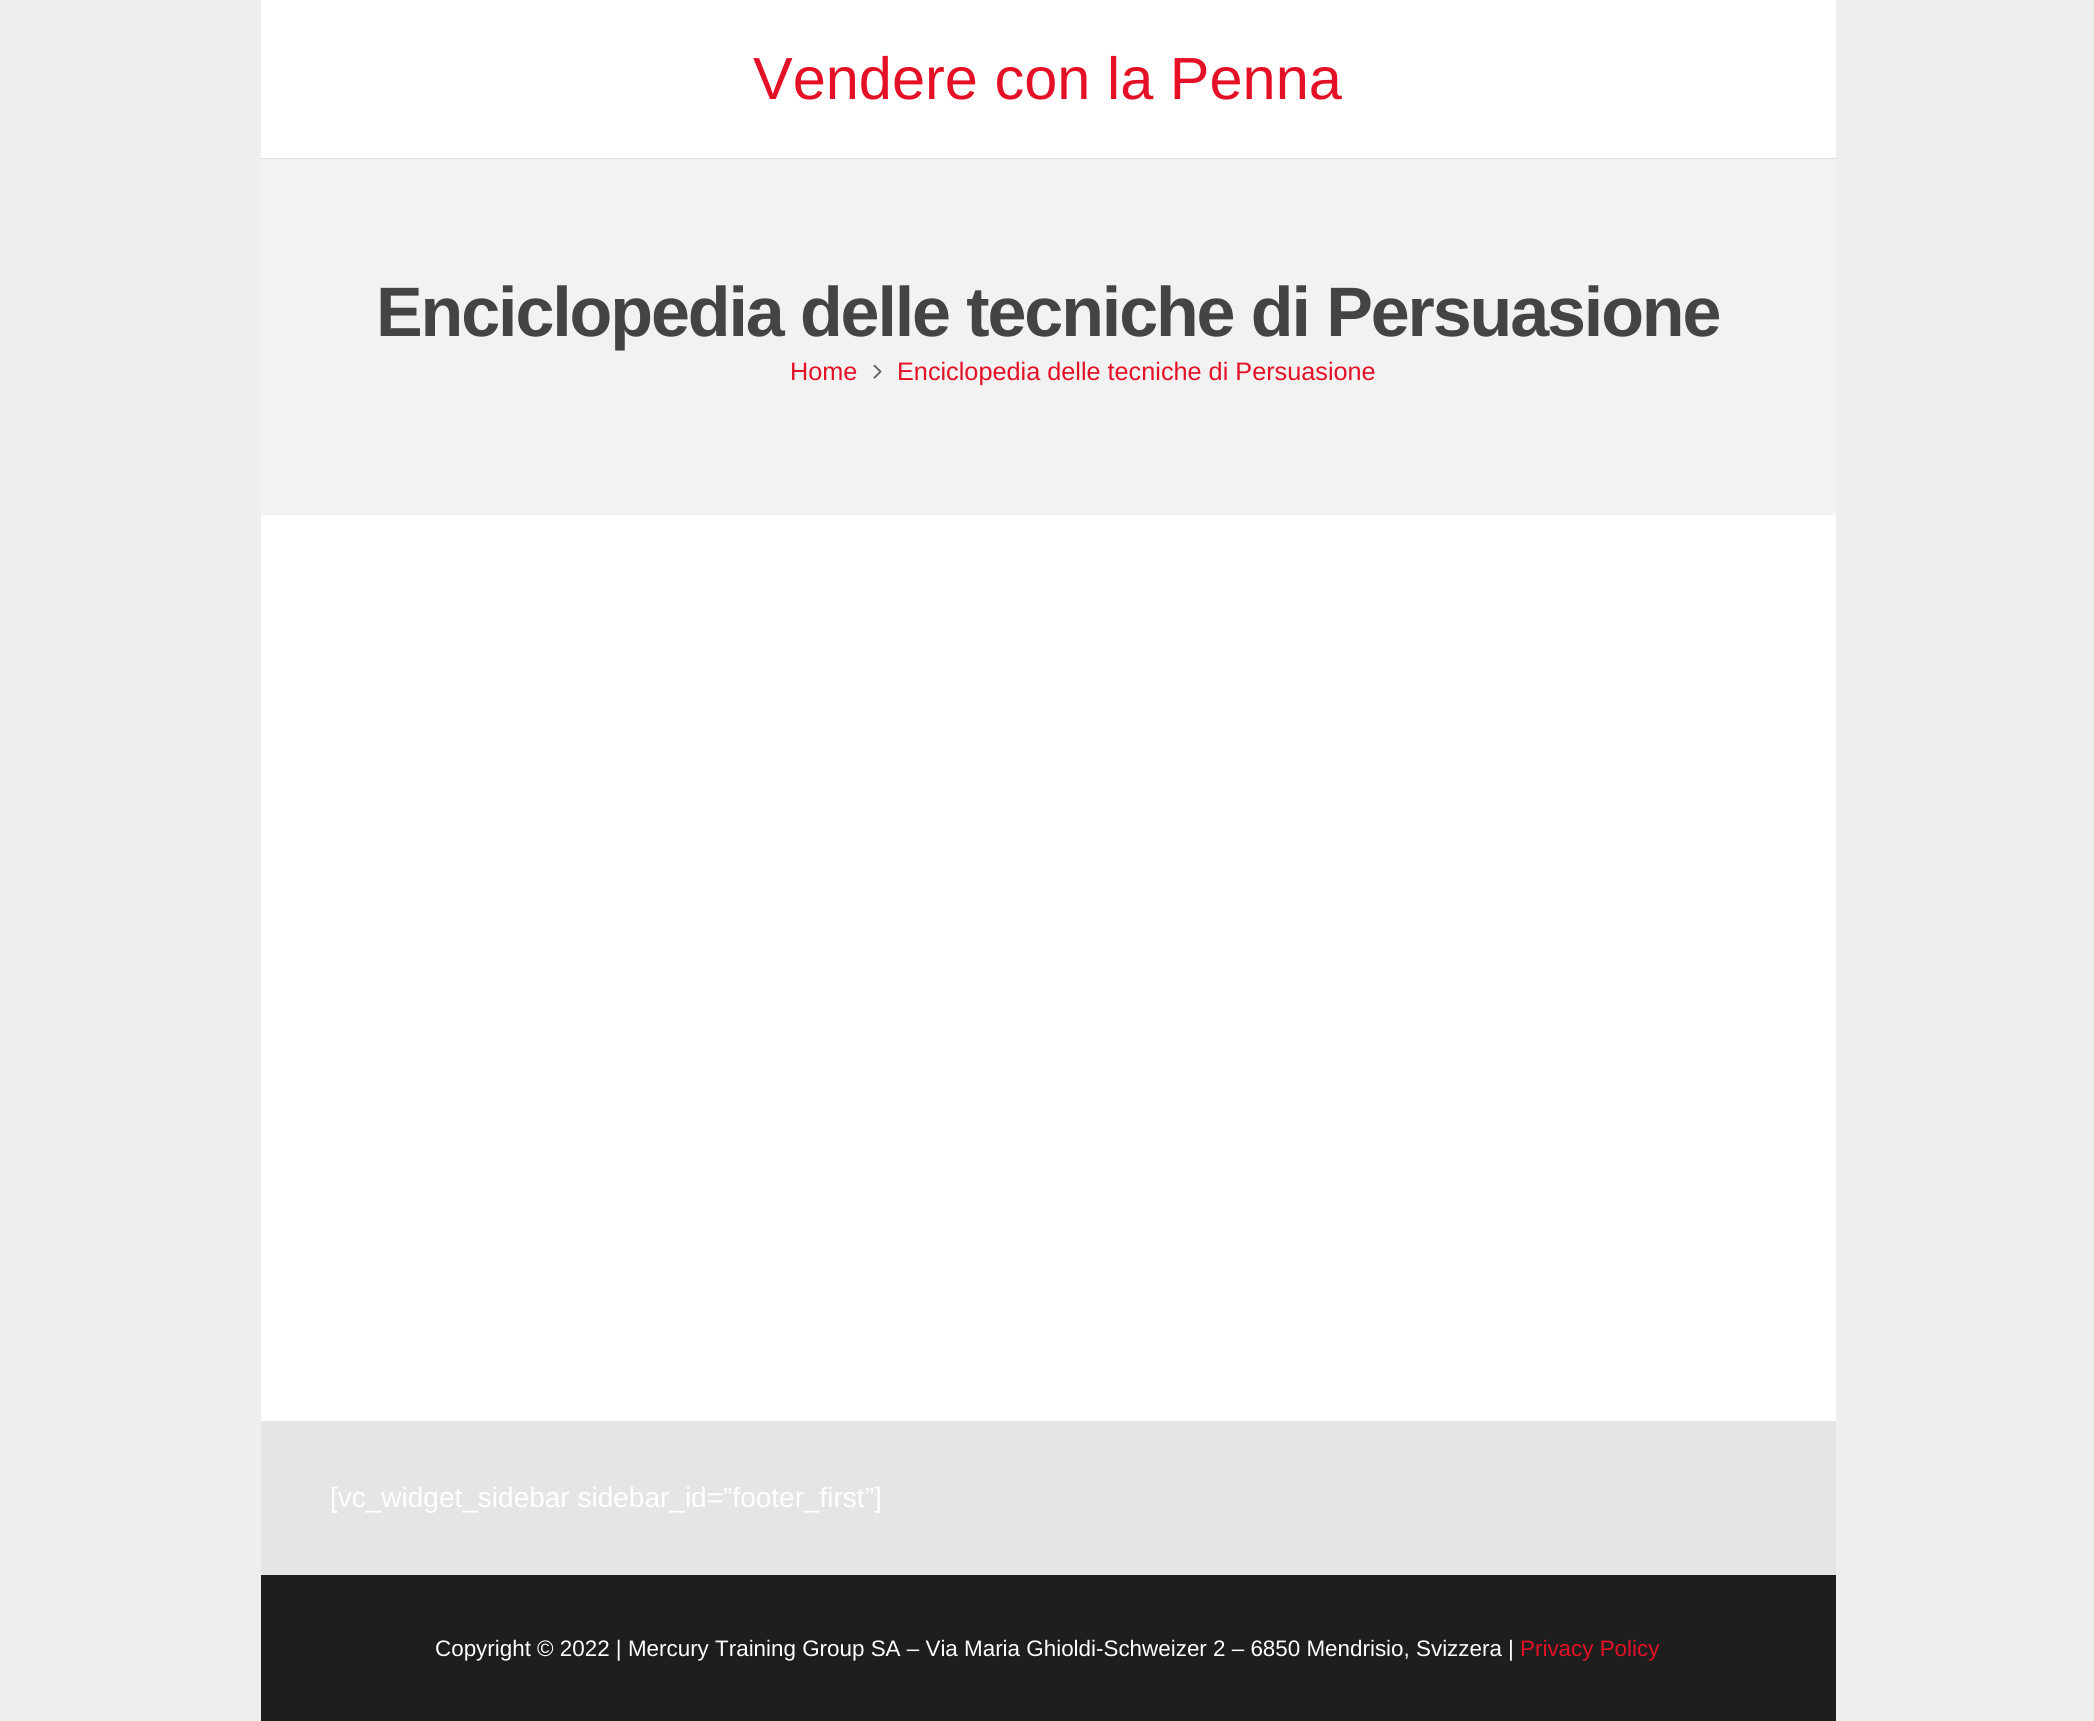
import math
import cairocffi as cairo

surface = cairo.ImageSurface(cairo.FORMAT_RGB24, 2094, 1721)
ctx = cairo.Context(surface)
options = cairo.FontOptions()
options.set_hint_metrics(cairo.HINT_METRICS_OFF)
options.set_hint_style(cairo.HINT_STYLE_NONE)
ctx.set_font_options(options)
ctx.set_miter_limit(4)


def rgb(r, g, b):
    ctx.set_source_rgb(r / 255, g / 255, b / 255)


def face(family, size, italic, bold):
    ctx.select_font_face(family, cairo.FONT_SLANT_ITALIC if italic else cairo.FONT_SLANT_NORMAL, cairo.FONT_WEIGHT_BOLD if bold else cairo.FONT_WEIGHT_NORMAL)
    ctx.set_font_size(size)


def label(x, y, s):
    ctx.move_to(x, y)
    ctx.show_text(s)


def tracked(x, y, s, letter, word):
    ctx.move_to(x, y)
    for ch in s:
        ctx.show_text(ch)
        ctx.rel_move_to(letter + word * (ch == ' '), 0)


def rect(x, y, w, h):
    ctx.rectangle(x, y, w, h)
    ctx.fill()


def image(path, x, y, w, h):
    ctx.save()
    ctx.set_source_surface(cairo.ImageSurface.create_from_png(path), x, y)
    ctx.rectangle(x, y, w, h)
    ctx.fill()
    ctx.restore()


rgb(238, 238, 238)
ctx.paint()
rgb(255, 255, 255)
rect(261, 0, 1575, 1421)
rgb(223, 223, 223)
ctx.new_path()
ctx.move_to(261, 158)
ctx.line_to(261, 159)
ctx.line_to(1836, 159)
ctx.line_to(1836, 2)
ctx.line_to(1836, 158)
ctx.close_path()
ctx.fill()
face('Liberation Sans', 59.5, 0, 0)
rgb(228, 16, 37)
label(753, 99, 'Vendere con la Penna')
rgb(242, 242, 242)
rect(261, 159, 1575, 356)
face('Liberation Sans', 70, 0, 1)
rgb(68, 68, 68)
tracked(376, 336, 'Enciclopedia delle tecniche di Persuasione', -2.1, 0)
face('Liberation Sans', 25.25, 0, 0)
rgb(228, 16, 37)
label(790, 380, 'Home')
image('image0.png', 873, 364, 9, 15)
label(897, 380, 'Enciclopedia delle tecniche di Persuasione')
rgb(229, 229, 229)
rect(261, 1421, 1575, 154)
face('Liberation Sans', 28, 0, 0)
rgb(255, 255, 255)
label(330, 1507, '[vc_widget_sidebar sidebar_id=”footer_first”]')
rgb(30, 30, 30)
rect(261, 1575, 1575, 146)
face('Liberation Sans', 22.4, 0, 0)
rgb(255, 255, 255)
label(435, 1656, 'Copyright © 2022 | Mercury Training Group SA – Via Maria Ghioldi-Schweizer 2 – 6850 Mendrisio, Svizzera |')
rgb(228, 16, 37)
label(1520, 1656, 'Privacy Policy')
surface.write_to_png('render.png')
